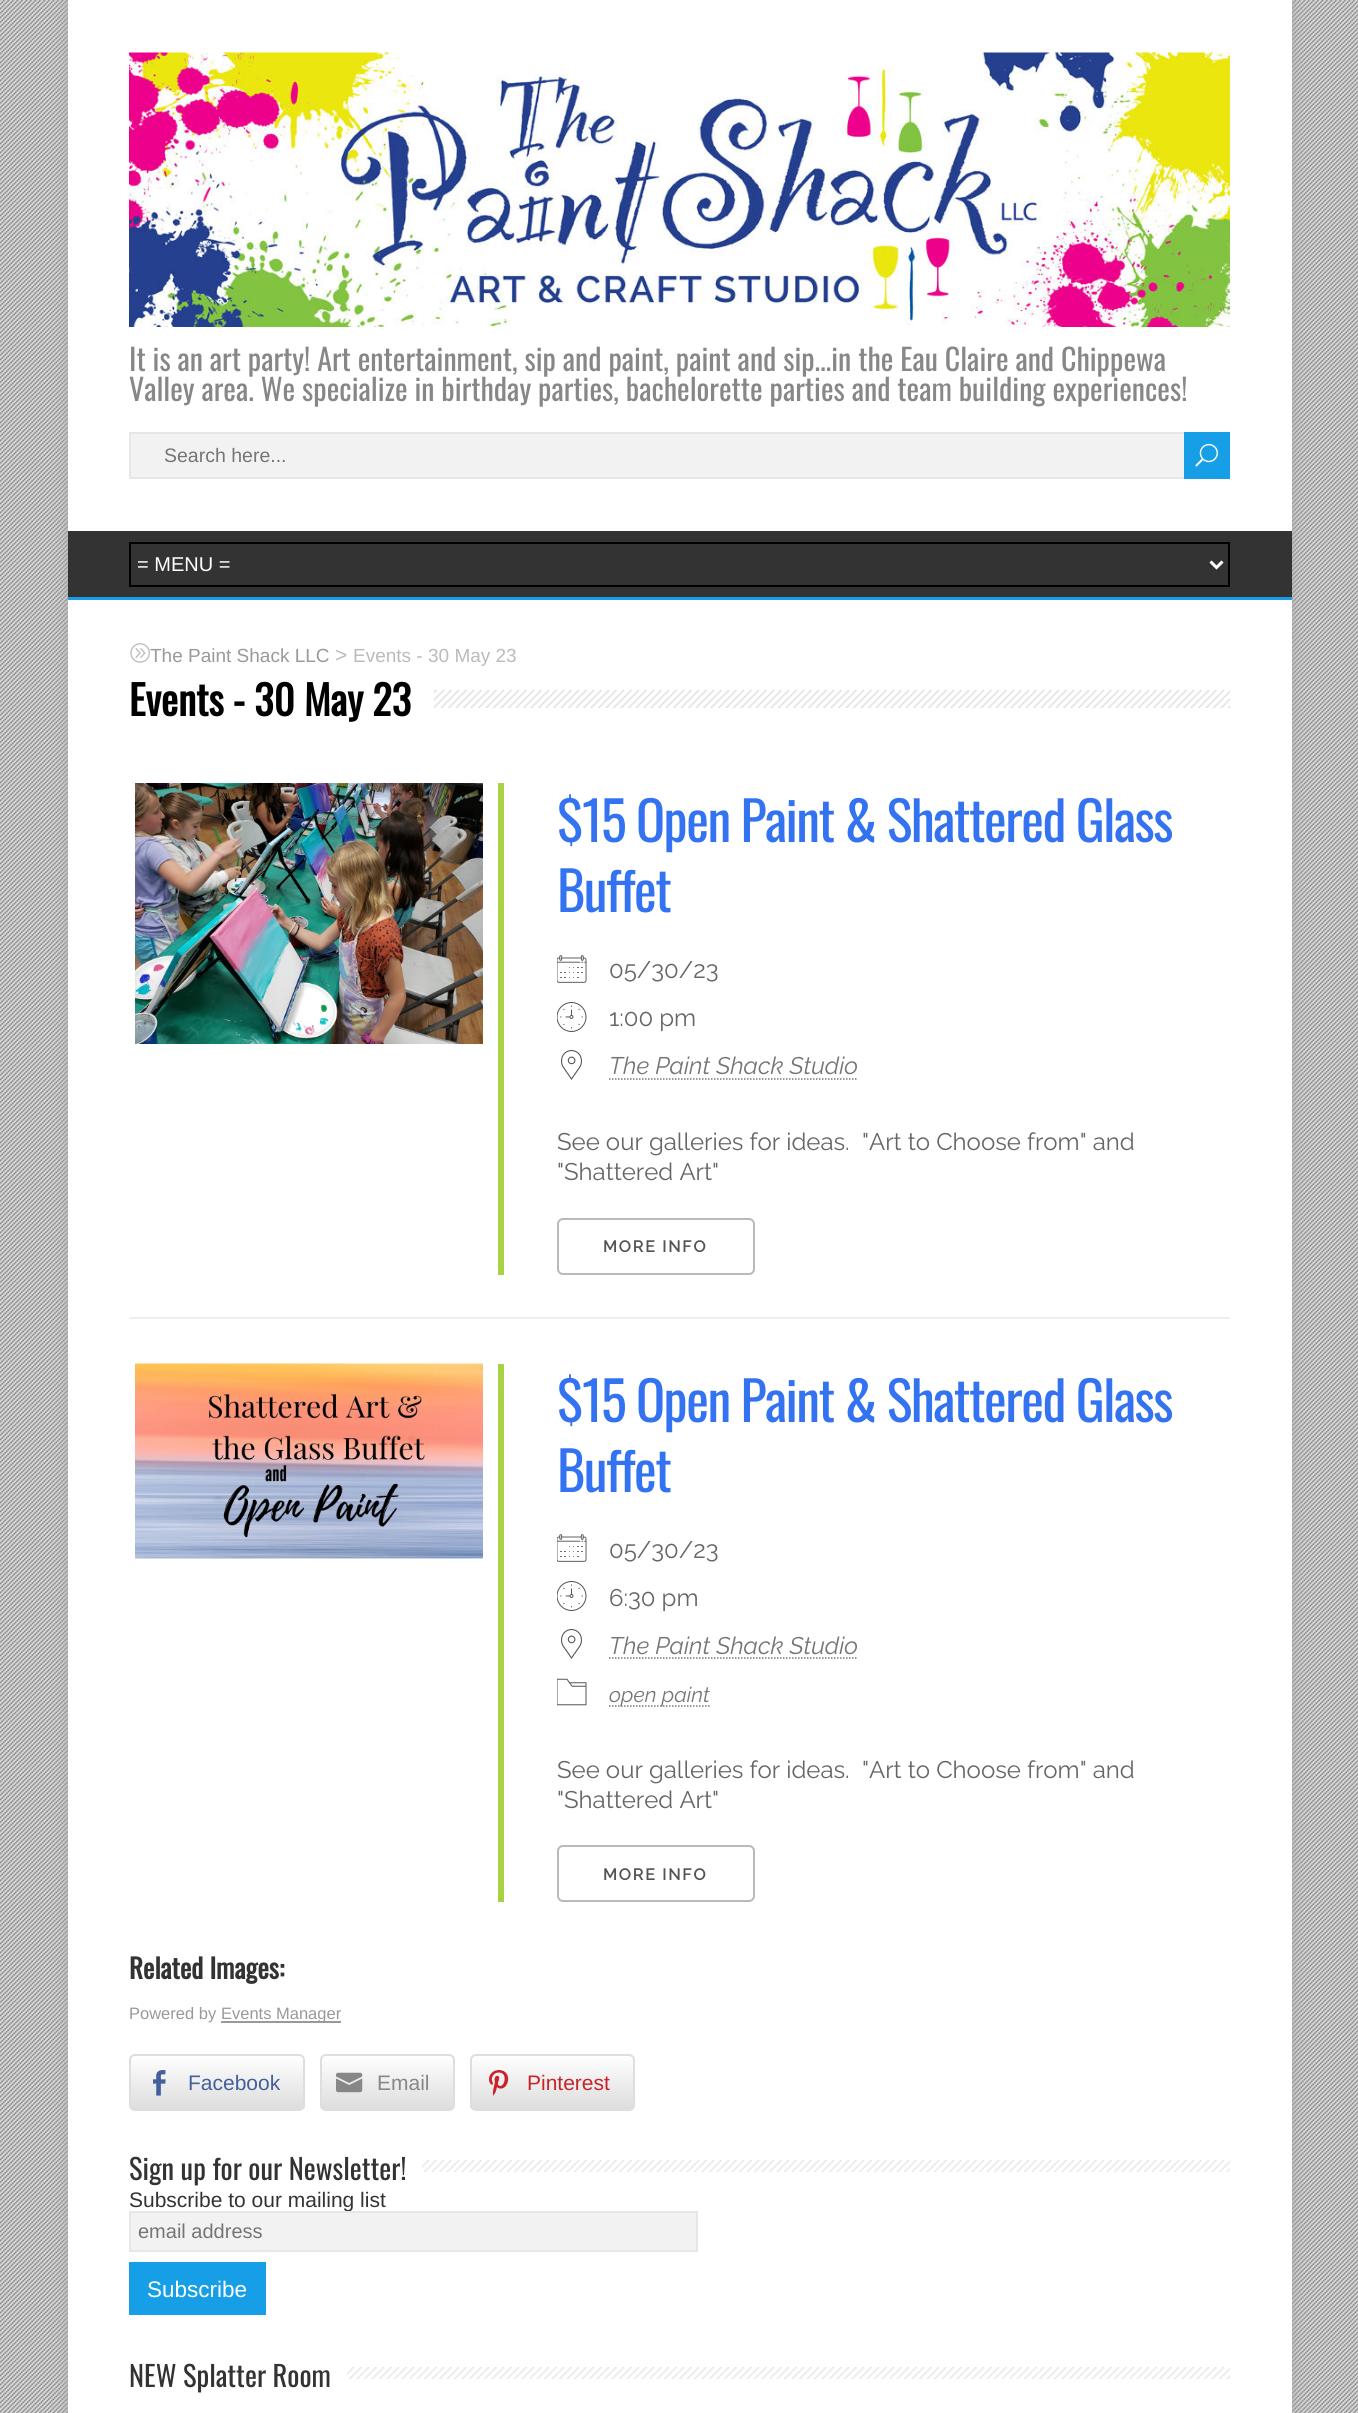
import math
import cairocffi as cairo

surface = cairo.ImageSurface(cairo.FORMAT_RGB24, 1358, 2413)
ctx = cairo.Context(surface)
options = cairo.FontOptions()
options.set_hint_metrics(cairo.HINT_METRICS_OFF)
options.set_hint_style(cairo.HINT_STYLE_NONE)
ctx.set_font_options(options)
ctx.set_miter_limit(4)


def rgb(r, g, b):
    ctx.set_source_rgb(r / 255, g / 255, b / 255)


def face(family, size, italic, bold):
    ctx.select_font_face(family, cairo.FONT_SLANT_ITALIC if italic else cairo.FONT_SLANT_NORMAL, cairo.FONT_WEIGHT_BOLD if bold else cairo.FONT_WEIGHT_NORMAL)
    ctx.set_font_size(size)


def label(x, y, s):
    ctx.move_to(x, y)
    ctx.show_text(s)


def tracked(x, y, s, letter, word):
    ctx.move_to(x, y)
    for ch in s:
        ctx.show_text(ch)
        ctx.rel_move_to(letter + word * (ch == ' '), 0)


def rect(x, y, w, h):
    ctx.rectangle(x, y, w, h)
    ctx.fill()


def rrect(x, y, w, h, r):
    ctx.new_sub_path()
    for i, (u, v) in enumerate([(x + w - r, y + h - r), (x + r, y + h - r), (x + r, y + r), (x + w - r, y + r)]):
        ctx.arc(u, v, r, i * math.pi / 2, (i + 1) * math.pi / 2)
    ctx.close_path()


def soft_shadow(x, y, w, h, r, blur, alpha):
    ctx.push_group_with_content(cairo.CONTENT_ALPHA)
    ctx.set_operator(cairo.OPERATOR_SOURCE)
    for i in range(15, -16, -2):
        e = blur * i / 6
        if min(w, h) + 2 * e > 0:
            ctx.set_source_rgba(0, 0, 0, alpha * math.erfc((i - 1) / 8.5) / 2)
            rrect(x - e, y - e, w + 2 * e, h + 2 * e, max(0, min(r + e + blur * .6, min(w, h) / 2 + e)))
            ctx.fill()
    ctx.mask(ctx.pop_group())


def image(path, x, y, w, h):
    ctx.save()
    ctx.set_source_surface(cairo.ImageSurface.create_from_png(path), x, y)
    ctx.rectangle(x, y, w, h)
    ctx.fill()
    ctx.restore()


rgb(222, 222, 222)
ctx.paint()
image('image0.png', 0, 0, 1358, 2413)
rgb(170, 170, 170)
soft_shadow(68, 0, 1224, 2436, 0, 7.5, 1)
rgb(255, 255, 255)
rect(68, 0, 1224, 2413)
image('image1.png', 129, 52, 1101, 275)
face('Oswald', 30, 0, 0)
rgb(135, 135, 135)
label(129, 371, 'It is an art party! Art entertainment, sip and paint, paint and sip…in the Eau Claire and Chippewa')
label(129, 401, 'Valley area. We specialize in birthday parties, bachelorette parties and team building experiences!')
rgb(242, 242, 242)
rect(131, 434, 1053, 43)
ctx.rectangle(130, 433, 1092, 45)
rgb(230, 230, 230)
ctx.stroke()
face('Liberation Sans', 19.5, 0, 0)
rgb(117, 117, 117)
label(164, 462, 'Search here...')
rgb(22, 159, 230)
rect(1184, 432, 46, 47)
image('image2.png', 1195, 443, 23, 24)
rgb(51, 51, 51)
rect(68, 531, 1224, 66)
rgb(22, 159, 230)
rect(68, 597, 1224, 3)
ctx.rectangle(130, 543, 1099, 43)
rgb(0, 0, 0)
ctx.stroke()
ctx.new_path()
ctx.move_to(1210.5, 561.5)
ctx.line_to(1216.5, 567.5)
ctx.line_to(1222.5, 561.5)
rgb(255, 255, 255)
ctx.set_line_width(3)
ctx.stroke()
face('Liberation Sans', 20, 0, 0)
label(137, 571, '= MENU =')
image('image3.png', 130, 643, 20, 20)
face('Liberation Sans', 19, 0, 0)
rgb(153, 153, 153)
label(150, 662, 'The Paint Shack LLC')
face('Liberation Sans', 21, 0, 0)
rgb(187, 187, 187)
label(335, 662, '>')
face('Liberation Sans', 19, 0, 0)
label(353, 662, 'Events - 30 May 23')
image('image4.png', 434, 690, 796, 18)
face('Oswald', 40.5, 0, 1)
rgb(0, 0, 0)
label(129, 716, 'Events - 30 May 23')
image('image5.png', 135, 783, 348, 261)
rgb(168, 209, 68)
rect(498, 783, 6, 492)
face('Oswald', 54, 0, 0)
rgb(51, 114, 240)
tracked(557, 842, '$15 Open Paint & Shattered Glass', -1.5, 0)
tracked(557, 912, 'Buffet', -1.5, 0)
image('image6.png', 557, 955, 30, 28)
face('Raleway', 24, 0, 0)
rgb(102, 102, 102)
label(609, 978, '05/30/23')
image('image7.png', 557, 1002, 30, 30)
label(609, 1026, '1:00 pm')
image('image8.png', 561, 1050, 21, 30)
face('Raleway', 24, 1, 0)
rgb(117, 117, 117)
label(609, 1074, 'The Paint Shack Studio')
ctx.new_path()
ctx.move_to(609, 1079)
ctx.line_to(858, 1079)
rgb(120, 120, 120)
ctx.set_line_width(1.5)
ctx.set_dash([1.5, 1.5])
ctx.stroke()
face('Raleway', 24, 0, 0)
rgb(102, 102, 102)
label(557, 1150, 'See our galleries for ideas.  "Art to Choose from" and')
label(557, 1180, '"Shattered Art"')
rrect(558, 1219, 196, 55, 5)
rgb(186, 186, 186)
ctx.set_line_width(2)
ctx.set_dash([])
ctx.stroke()
face('Raleway SemiBold', 16.5, 0, 0)
rgb(84, 84, 84)
tracked(603, 1252, 'MORE INFO', 1.5, 0)
rgb(239, 239, 239)
rect(129, 1317, 1101, 2)
image('image9.png', 135, 1363, 348, 196)
rgb(168, 209, 68)
rect(498, 1364, 6, 538)
face('Oswald', 54, 0, 0)
rgb(51, 114, 240)
tracked(557, 1422, '$15 Open Paint & Shattered Glass', -1.5, 0)
tracked(557, 1492, 'Buffet', -1.5, 0)
image('image6.png', 557, 1534, 30, 28)
face('Raleway', 24, 0, 0)
rgb(102, 102, 102)
label(609, 1558, '05/30/23')
image('image7.png', 557, 1581, 30, 30)
label(609, 1606, '6:30 pm')
image('image8.png', 561, 1629, 21, 30)
face('Raleway', 24, 1, 0)
rgb(117, 117, 117)
label(609, 1654, 'The Paint Shack Studio')
ctx.new_path()
ctx.move_to(609, 1658)
ctx.line_to(858, 1658)
rgb(120, 120, 120)
ctx.set_line_width(1.5)
ctx.set_dash([1.5, 1.5])
ctx.stroke()
image('image10.png', 557, 1678, 30, 28)
ctx.new_path()
ctx.move_to(609, 1706)
ctx.line_to(709.5, 1706)
ctx.stroke()
face('Raleway', 21, 1, 0)
rgb(117, 117, 117)
label(609, 1702, 'open paint')
face('Raleway', 24, 0, 0)
rgb(102, 102, 102)
label(557, 1778, 'See our galleries for ideas.  "Art to Choose from" and')
label(557, 1808, '"Shattered Art"')
rrect(558, 1846, 196, 55, 5)
rgb(186, 186, 186)
ctx.set_line_width(2)
ctx.set_dash([])
ctx.stroke()
face('Raleway SemiBold', 16.5, 0, 0)
rgb(84, 84, 84)
tracked(603, 1880, 'MORE INFO', 1.5, 0)
face('Oswald', 27, 0, 1)
rgb(51, 51, 51)
label(129, 1979, 'Related Images:')
face('Liberation Sans', 16.5, 0, 0)
rgb(153, 153, 153)
label(129, 2019, 'Powered by')
rect(221, 2021, 120, 2)
label(221, 2019, 'Events Manager')
ctx.save()
rrect(129, 2054, 176, 57, 6)
ctx.clip()
gradient = cairo.LinearGradient(217, 2055, 217, 2109)
gradient.add_color_stop_rgba(0, 1, 1, 1, 1)
gradient.add_color_stop_rgba(1, 0.867, 0.867, 0.867, 1)
ctx.set_source(gradient)
rect(129, 2055, 176, 54)
ctx.restore()
rrect(130, 2055, 174, 55, 5)
rgb(222, 222, 222)
ctx.stroke()
image('image11.png', 153, 2070, 13, 26)
face('Liberation Sans', 21, 0, 0)
rgb(67, 96, 156)
label(188, 2090, 'Facebook')
ctx.save()
rrect(320, 2054, 135, 57, 6)
ctx.clip()
gradient = cairo.LinearGradient(387, 2055, 387, 2109)
gradient.add_color_stop_rgba(0, 1, 1, 1, 1)
gradient.add_color_stop_rgba(1, 0.867, 0.867, 0.867, 1)
ctx.set_source(gradient)
rect(320, 2055, 135, 54)
ctx.restore()
rrect(321, 2055, 133, 55, 5)
rgb(222, 222, 222)
ctx.stroke()
image('image12.png', 336, 2072, 27, 21)
rgb(135, 135, 135)
label(377, 2090, 'Email')
ctx.save()
rrect(470, 2054, 165, 57, 6)
ctx.clip()
gradient = cairo.LinearGradient(552, 2055, 552, 2109)
gradient.add_color_stop_rgba(0, 1, 1, 1, 1)
gradient.add_color_stop_rgba(1, 0.867, 0.867, 0.867, 1)
ctx.set_source(gradient)
rect(470, 2055, 165, 54)
ctx.restore()
rrect(471, 2055, 163, 55, 5)
rgb(222, 222, 222)
ctx.stroke()
image('image13.png', 489, 2070, 20, 26)
rgb(201, 34, 40)
label(527, 2090, 'Pinterest')
image('image14.png', 422, 2160, 808, 12)
face('Oswald', 28.5, 0, 0)
rgb(51, 51, 51)
label(129, 2180, 'Sign up for our Newsletter!')
face('Liberation Sans', 21, 0, 0)
label(129, 2207, 'Subscribe to our mailing list')
rgb(242, 242, 242)
ctx.rectangle(130, 2212, 567, 39)
ctx.fill_preserve()
rgb(230, 230, 230)
ctx.stroke()
face('Liberation Sans', 20, 0, 0)
rgb(117, 117, 117)
label(138, 2238, 'email address')
rgb(22, 159, 230)
rect(129, 2262, 137, 53)
face('Liberation Sans', 22.5, 0, 0)
rgb(255, 255, 255)
label(147, 2297, 'Subscribe')
image('image15.png', 347, 2367, 883, 12)
face('Oswald', 28.5, 0, 0)
rgb(51, 51, 51)
label(129, 2387, 'NEW Splatter Room')
surface.write_to_png('render.png')
